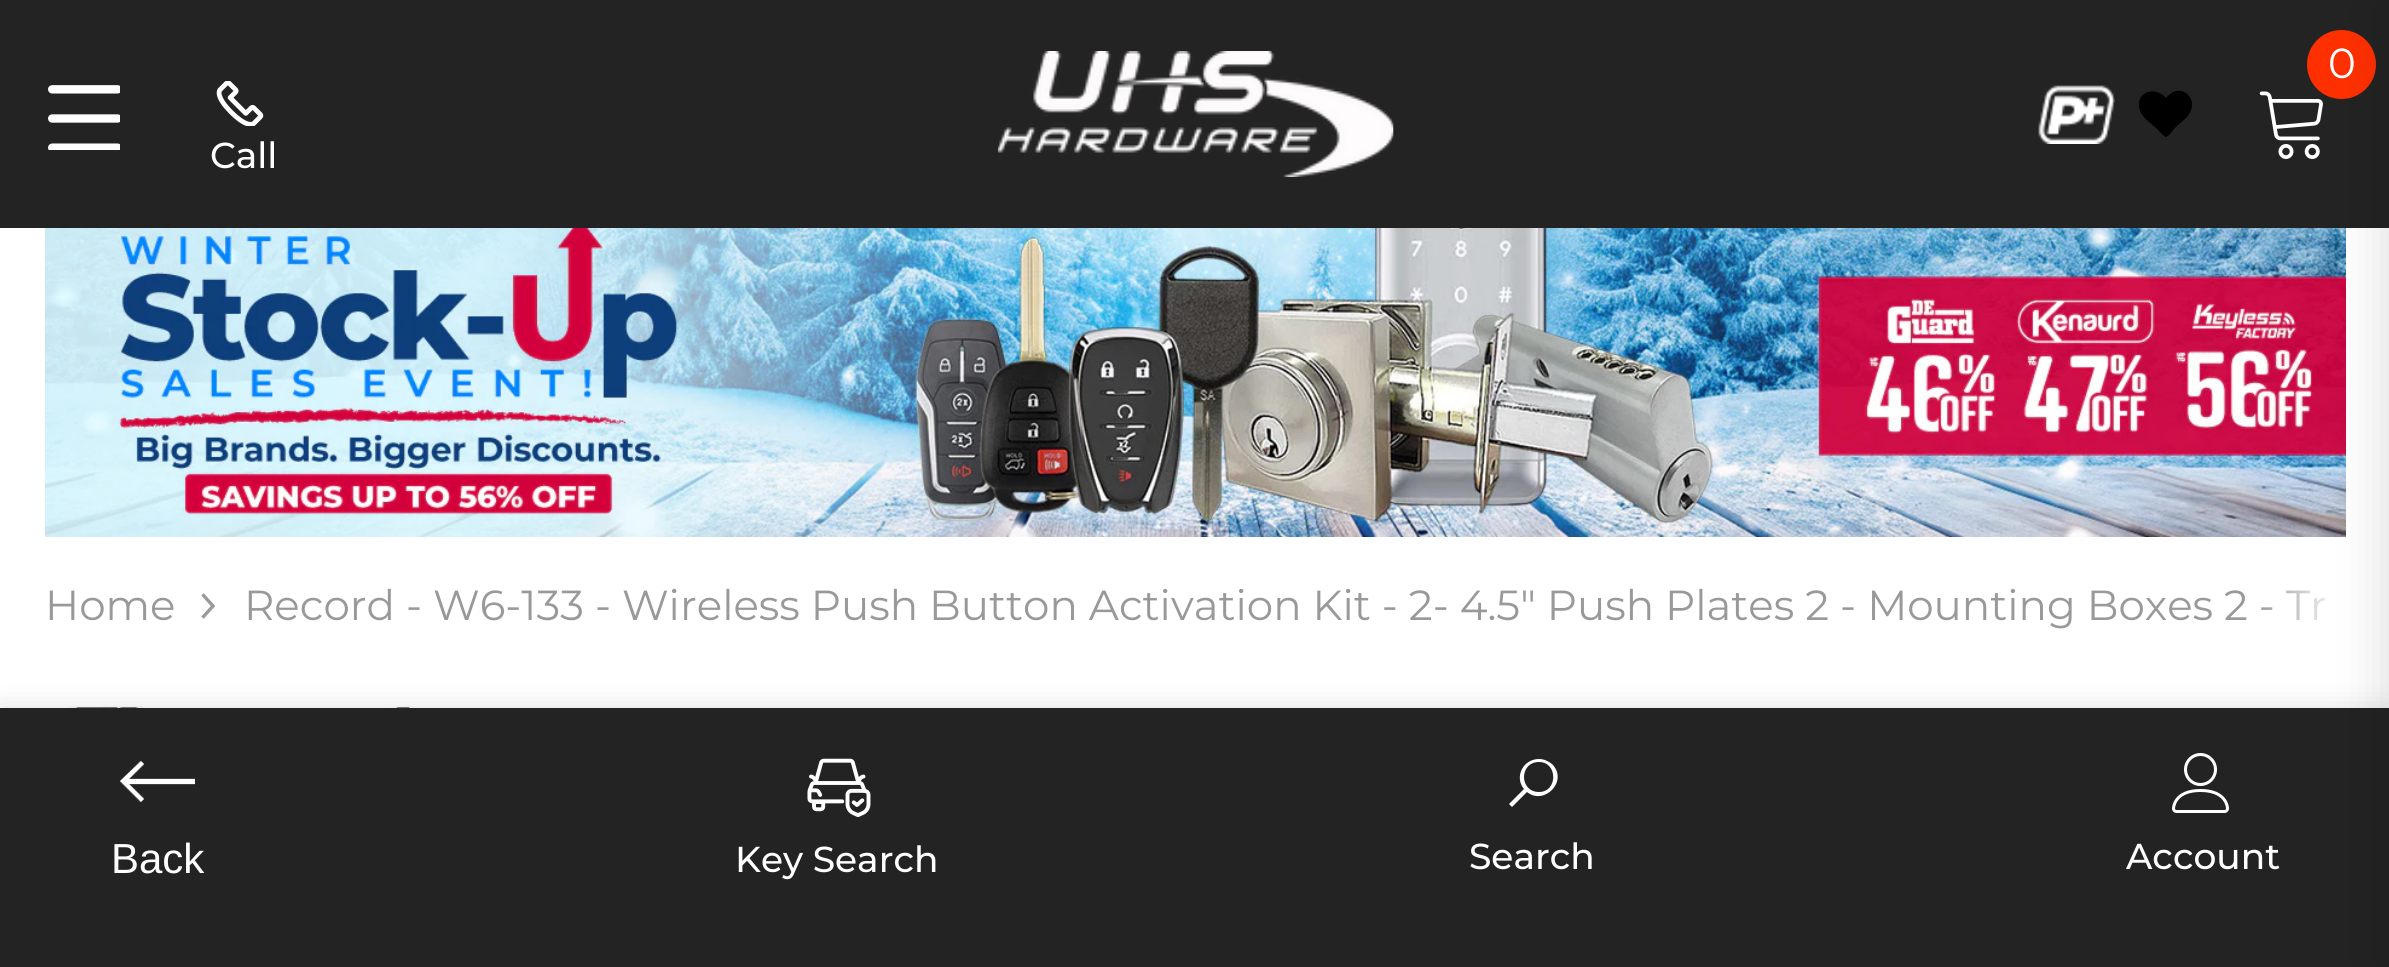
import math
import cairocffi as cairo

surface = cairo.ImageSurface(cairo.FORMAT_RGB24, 2389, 967)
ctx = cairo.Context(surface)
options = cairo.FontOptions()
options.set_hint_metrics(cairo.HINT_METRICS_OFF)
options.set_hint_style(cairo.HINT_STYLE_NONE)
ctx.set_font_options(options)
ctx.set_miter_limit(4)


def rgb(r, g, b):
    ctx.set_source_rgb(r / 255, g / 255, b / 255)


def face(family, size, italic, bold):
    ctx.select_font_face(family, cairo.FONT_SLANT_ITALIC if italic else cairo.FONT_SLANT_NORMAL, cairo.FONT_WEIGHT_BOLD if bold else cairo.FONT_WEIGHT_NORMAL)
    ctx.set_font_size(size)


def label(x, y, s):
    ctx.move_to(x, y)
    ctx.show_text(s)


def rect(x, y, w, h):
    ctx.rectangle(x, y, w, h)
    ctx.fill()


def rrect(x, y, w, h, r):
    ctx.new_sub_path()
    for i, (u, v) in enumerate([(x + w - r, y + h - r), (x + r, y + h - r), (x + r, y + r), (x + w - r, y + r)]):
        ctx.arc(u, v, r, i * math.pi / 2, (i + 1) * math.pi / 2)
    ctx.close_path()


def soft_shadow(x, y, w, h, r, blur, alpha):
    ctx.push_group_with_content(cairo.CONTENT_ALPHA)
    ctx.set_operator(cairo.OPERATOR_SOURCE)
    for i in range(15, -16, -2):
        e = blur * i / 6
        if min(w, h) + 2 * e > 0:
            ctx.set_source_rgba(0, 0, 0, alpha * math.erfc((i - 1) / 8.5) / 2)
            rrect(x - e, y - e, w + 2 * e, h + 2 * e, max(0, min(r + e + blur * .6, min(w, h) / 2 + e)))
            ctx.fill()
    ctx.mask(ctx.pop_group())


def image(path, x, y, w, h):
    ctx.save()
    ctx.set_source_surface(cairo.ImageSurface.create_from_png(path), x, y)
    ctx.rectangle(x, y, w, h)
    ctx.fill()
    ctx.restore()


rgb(255, 255, 255)
ctx.paint()
rgb(35, 35, 35)
rect(0, 0, 2389, 228)
image('image2.png', 2259, 91, 64, 68)
rgb(255, 48, 0)
ctx.arc(2341.5, 64.5, 34.5, 0, 2 * math.pi)
ctx.fill()
image('image5.png', 45, 228, 2301, 309)
face('Montserrat', 42, 0, 0)
rgb(153, 153, 153)
label(244, 620, 'Record - W6-133 - Wireless Push Button Activation Kit - 2- 4.5" Push Plates 2 - Mounting Boxes 2 - Tr')
gradient = cairo.LinearGradient(2346, 606, 2256, 606)
gradient.add_color_stop_rgba(0, 1, 1, 1, 1)
gradient.add_color_stop_rgba(1, 1, 1, 1, 0)
ctx.set_source(gradient)
rect(2262, 590, 64, 30)
image('image7.png', 56, 706, 721, 2)
rgb(0, 0, 0)
soft_shadow(0, 708, 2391, 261, 0, 13.5, 0.12)
rgb(35, 35, 35)
rect(0, 708, 2389, 259)
rgb(0, 0, 0)
soft_shadow(2376, 0, 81, 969, 0, 22.5, 0.1)
image('image0.png', 48, 85, 72, 65)
image('image1.png', 998, 51, 396, 126)
rgb(255, 255, 255)
label(2328, 78, '0')
image('image3.png', 2038, 85, 77, 59)
ctx.save()
ctx.rectangle(2139, 90, 54, 48)
ctx.clip()
rgb(0, 0, 0)
ctx.new_path()
ctx.move_to(2166, 137)
ctx.curve_to(2164, 137, 2157, 129, 2155, 127)
ctx.curve_to(2150, 123, 2143, 118, 2140, 111)
ctx.curve_to(2133, 94, 2154, 84, 2166, 98)
ctx.curve_to(2168, 95, 2172, 92, 2176, 91)
ctx.curve_to(2187, 89, 2195, 100, 2191, 110)
ctx.curve_to(2189, 117, 2181, 122, 2176, 127)
ctx.curve_to(2174, 129, 2168, 137, 2166, 137)
ctx.close_path()
ctx.fill()
ctx.restore()
image('image4.png', 216, 81, 48, 45)
face('Montserrat Medium', 36, 0, 0)
label(210, 168, 'Call')
face('Montserrat', 42, 0, 0)
rgb(153, 153, 153)
label(45, 620, 'Home')
image('image6.png', 201, 593, 14, 26)
rgb(255, 255, 255)
ctx.new_path()
ctx.move_to(195, 779)
ctx.line_to(129, 779)
ctx.line_to(144, 764)
ctx.line_to(141, 761)
ctx.line_to(120, 781)
ctx.line_to(141, 802)
ctx.line_to(144, 799)
ctx.line_to(129, 784)
ctx.line_to(195, 784)
ctx.close_path()
ctx.fill()
ctx.save()
ctx.rectangle(120, 744, 75, 75)
ctx.clip()
ctx.new_path()
ctx.move_to(195, 779)
ctx.line_to(129, 779)
ctx.line_to(144, 764.5)
ctx.line_to(140.5, 761)
ctx.line_to(120, 781.5)
ctx.line_to(140.5, 802)
ctx.line_to(144, 798.5)
ctx.line_to(129, 784)
ctx.line_to(195, 784)
ctx.close_path()
ctx.set_line_width(0.2)
ctx.stroke()
ctx.restore()
face('Liberation Sans', 42, 0, 0)
label(111, 873, 'Back')
image('image8.png', 807, 758, 64, 60)
face('Montserrat Medium', 36, 0, 0)
label(735, 872, 'Key Search')
ctx.new_path()
ctx.move_to(1539, 759)
ctx.curve_to(1523, 759, 1514, 777, 1524, 789)
ctx.line_to(1509, 804)
ctx.line_to(1512, 807)
ctx.line_to(1527, 792)
ctx.curve_to(1544, 806, 1569, 781, 1552, 764)
ctx.curve_to(1548, 761, 1544, 759, 1539, 759)
ctx.close_path()
ctx.move_to(1539, 762)
ctx.curve_to(1558, 762, 1558, 792, 1539, 792)
ctx.curve_to(1519, 792, 1519, 762, 1539, 762)
ctx.close_path()
ctx.fill()
label(1469, 869, 'Search')
image('image9.png', 2172, 753, 57, 60)
label(2126, 869, 'Account')
surface.write_to_png('render.png')
